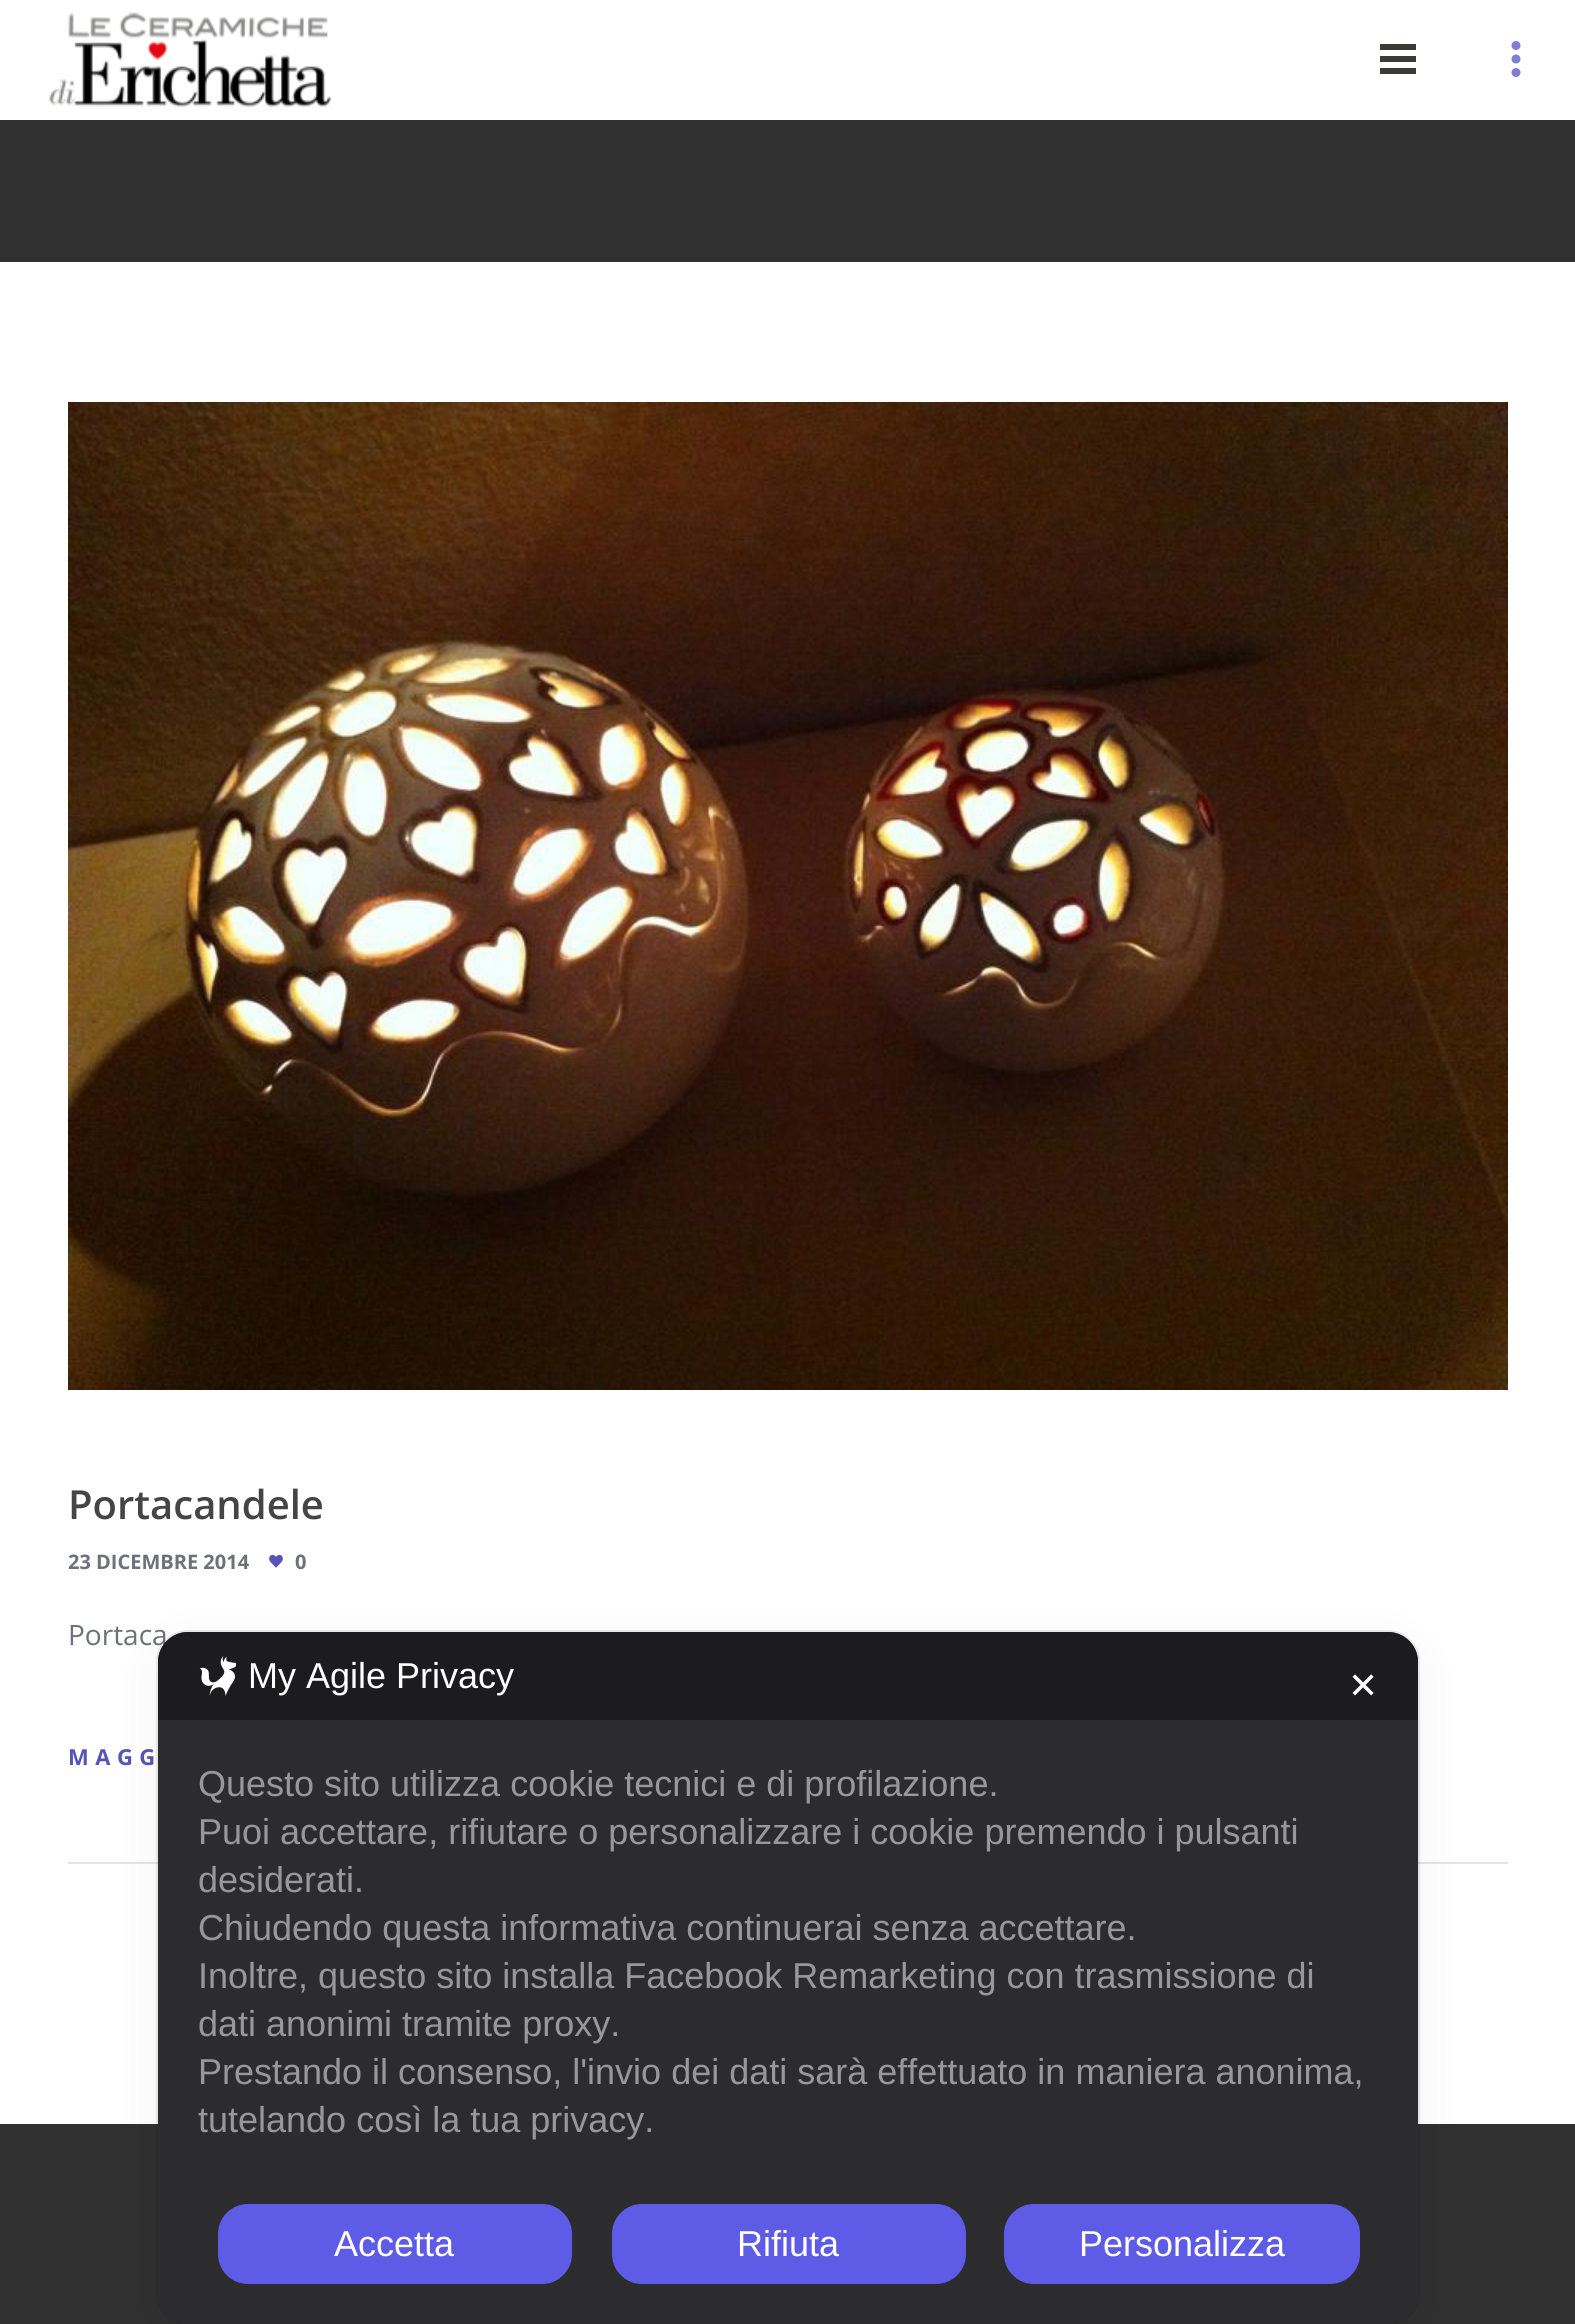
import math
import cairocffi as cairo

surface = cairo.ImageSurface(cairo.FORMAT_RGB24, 1575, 2324)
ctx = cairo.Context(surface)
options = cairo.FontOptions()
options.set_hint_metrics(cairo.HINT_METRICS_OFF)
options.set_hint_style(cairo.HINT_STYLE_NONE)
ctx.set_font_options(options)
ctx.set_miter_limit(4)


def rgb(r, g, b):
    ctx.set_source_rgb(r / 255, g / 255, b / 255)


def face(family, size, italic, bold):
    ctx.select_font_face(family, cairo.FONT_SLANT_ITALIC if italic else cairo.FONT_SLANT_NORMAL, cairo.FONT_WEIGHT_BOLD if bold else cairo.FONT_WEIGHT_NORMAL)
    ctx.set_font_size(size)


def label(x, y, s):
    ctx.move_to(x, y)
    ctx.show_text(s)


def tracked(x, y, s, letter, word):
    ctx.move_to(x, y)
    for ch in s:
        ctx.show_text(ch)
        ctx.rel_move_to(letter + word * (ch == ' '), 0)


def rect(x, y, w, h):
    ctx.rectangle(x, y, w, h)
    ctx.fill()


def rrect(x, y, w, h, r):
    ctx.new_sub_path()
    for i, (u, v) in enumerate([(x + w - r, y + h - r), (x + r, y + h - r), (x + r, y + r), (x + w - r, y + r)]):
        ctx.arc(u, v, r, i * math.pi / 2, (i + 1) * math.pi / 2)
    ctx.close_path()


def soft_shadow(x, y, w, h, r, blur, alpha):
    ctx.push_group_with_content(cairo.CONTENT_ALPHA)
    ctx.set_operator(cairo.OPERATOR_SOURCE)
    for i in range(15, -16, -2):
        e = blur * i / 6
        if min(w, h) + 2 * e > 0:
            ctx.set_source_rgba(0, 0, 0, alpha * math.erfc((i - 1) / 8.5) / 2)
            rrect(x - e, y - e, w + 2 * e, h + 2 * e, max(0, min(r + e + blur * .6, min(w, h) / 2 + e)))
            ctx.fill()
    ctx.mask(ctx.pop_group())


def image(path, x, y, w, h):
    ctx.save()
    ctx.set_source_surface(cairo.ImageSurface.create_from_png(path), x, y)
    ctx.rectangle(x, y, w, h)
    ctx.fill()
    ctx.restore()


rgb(255, 255, 255)
ctx.paint()
image('image0.png', 49, 12, 282, 95)
rgb(60, 58, 53)
rect(1380, 44, 36, 6)
rect(1380, 56, 36, 6)
rect(1380, 68, 36, 6)
image('image1.png', 1511, 41, 10, 36)
rgb(48, 48, 48)
rect(0, 120, 1575, 142)
rgb(228, 228, 228)
rect(68, 1862, 1440, 2)
image('image2.png', 68, 402, 1440, 988)
face('Open Sans SemiBold', 40, 0, 0)
rgb(69, 69, 69)
label(68, 1519, 'Portacandele')
face('Open Sans', 20, 0, 1)
rgb(110, 113, 119)
label(68, 1569, '23 DICEMBRE 2014')
image('image3.png', 269, 1554, 14, 14)
label(295, 1569, '0')
face('Open Sans', 28, 0, 0)
label(68, 1645, 'Portaca')
face('Open Sans', 22, 0, 1)
rgb(86, 84, 183)
tracked(68, 1765, 'MAGG', 6.5, 0)
rgb(48, 48, 48)
rect(0, 2124, 1575, 200)
rrect(157, 1631, 1262, 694, 31)
ctx.set_source_rgba(0, 0, 0, 0.08)
ctx.stroke()
rgb(0, 0, 0)
soft_shadow(158, 1644, 1260, 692, 30, 24, 0.05)
rgb(44, 44, 46)
rrect(158, 1632, 1260, 692, 30)
ctx.fill()
rgb(28, 28, 30)
ctx.new_path()
ctx.move_to(188, 1632)
ctx.line_to(1388, 1632)
ctx.curve_to(1404.5, 1632, 1418, 1645.5, 1418, 1662)
ctx.line_to(1418, 1720)
ctx.line_to(158, 1720)
ctx.line_to(158, 1662)
ctx.curve_to(158, 1645.5, 171.5, 1632, 188, 1632)
ctx.close_path()
ctx.fill()
image('image4.png', 199, 1656, 37, 40)
face('Liberation Sans', 36, 0, 0)
rgb(255, 255, 255)
label(248, 1688, 'My Agile Privacy')
face('DejaVu Sans', 36, 0, 0)
label(1348, 1698, '✕')
face('Liberation Sans', 36, 0, 0)
rgb(152, 152, 153)
label(198, 1796, 'Questo sito utilizza cookie tecnici e di profilazione.')
label(198, 1844, 'Puoi accettare, rifiutare o personalizzare i cookie premendo i pulsanti')
label(198, 1892, 'desiderati.')
label(198, 1940, 'Chiudendo questa informativa continuerai senza accettare.')
label(198, 1988, 'Inoltre, questo sito installa Facebook Remarketing con trasmissione di')
label(198, 2036, 'dati anonimi tramite proxy.')
label(198, 2084, 'Prestando il consenso, l\'invio dei dati sarà effettuato in maniera anonima,')
label(198, 2132, 'tutelando così la tua privacy.')
rgb(94, 92, 230)
rrect(218, 2204, 354, 80, 30)
ctx.fill()
rgb(255, 255, 255)
label(334, 2256, 'Accetta')
rgb(94, 92, 230)
rrect(612, 2204, 354, 80, 30)
ctx.fill()
rgb(255, 255, 255)
label(737, 2256, 'Rifiuta')
rgb(94, 92, 230)
rrect(1004, 2204, 356, 80, 30)
ctx.fill()
rgb(255, 255, 255)
label(1079, 2256, 'Personalizza')
surface.write_to_png('render.png')
